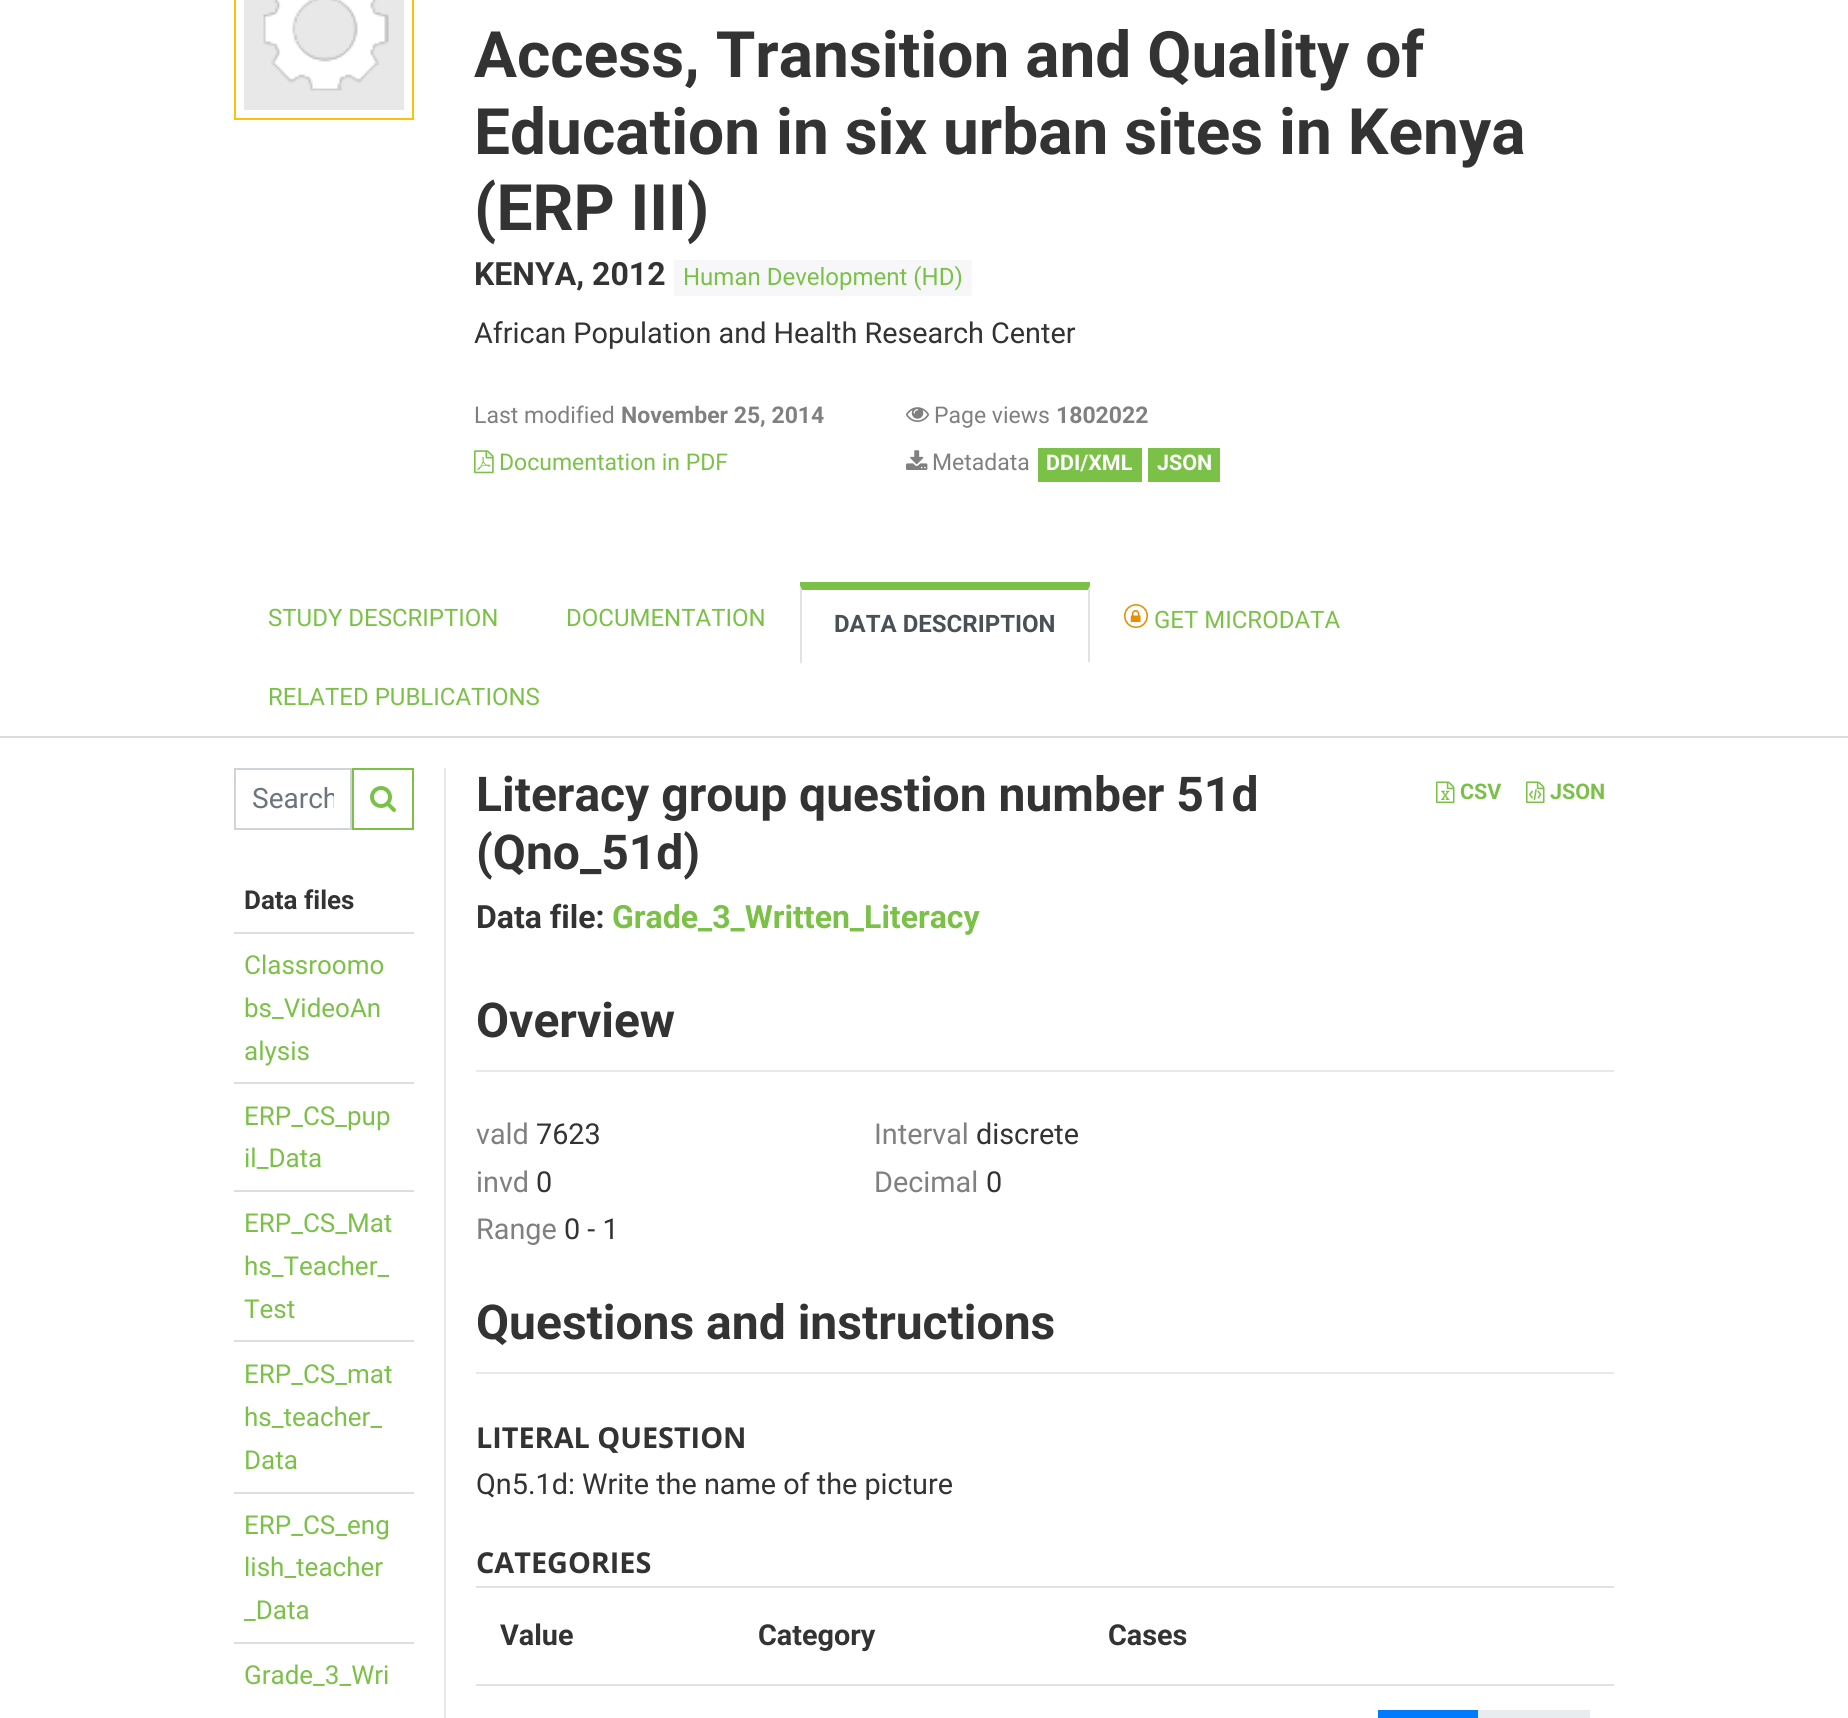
import math
import cairocffi as cairo

surface = cairo.ImageSurface(cairo.FORMAT_RGB24, 1848, 1718)
ctx = cairo.Context(surface)
options = cairo.FontOptions()
options.set_hint_metrics(cairo.HINT_METRICS_OFF)
options.set_hint_style(cairo.HINT_STYLE_NONE)
ctx.set_font_options(options)
ctx.set_miter_limit(4)


def rgb(r, g, b):
    ctx.set_source_rgb(r / 255, g / 255, b / 255)


def face(family, size, italic, bold):
    ctx.select_font_face(family, cairo.FONT_SLANT_ITALIC if italic else cairo.FONT_SLANT_NORMAL, cairo.FONT_WEIGHT_BOLD if bold else cairo.FONT_WEIGHT_NORMAL)
    ctx.set_font_size(size)


def label(x, y, s):
    ctx.move_to(x, y)
    ctx.show_text(s)


def rect(x, y, w, h):
    ctx.rectangle(x, y, w, h)
    ctx.fill()


def image(path, x, y, w, h):
    ctx.save()
    ctx.set_source_surface(cairo.ImageSurface.create_from_png(path), x, y)
    ctx.rectangle(x, y, w, h)
    ctx.fill()
    ctx.restore()


rgb(255, 255, 255)
ctx.paint()
rgb(220, 220, 220)
rect(0, 736, 1848, 2)
ctx.rectangle(235, -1, 178, 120)
rgb(255, 193, 7)
ctx.stroke()
image('image0.png', 244, 0, 160, 110)
face('Roboto', 64, 0, 1)
rgb(51, 51, 51)
label(474, 77, 'Access, Transition and Quality of')
label(474, 154, 'Education in six urban sites in Kenya')
label(474, 230, '(ERP III)')
face('Roboto', 32, 0, 1)
label(474, 285, 'KENYA, 2012')
rgb(247, 247, 249)
rect(674, 260, 298, 36)
face('Roboto', 24, 0, 0)
rgb(123, 193, 72)
label(683, 285, 'Human Development (HD)')
face('Roboto', 28.8, 0, 0)
rgb(51, 51, 51)
label(474, 343, 'African Population and Health Research Center')
face('Roboto', 23, 0, 0)
rgb(128, 128, 128)
label(474, 423, 'Last modified')
face('Roboto', 23, 0, 1)
label(621, 423, 'November 25, 2014')
image('image1.png', 906, 407, 23, 15)
face('Roboto', 23, 0, 0)
label(934, 423, 'Page views')
face('Roboto', 23, 0, 1)
label(1056, 423, '1802022')
image('image2.png', 474, 450, 20, 24)
face('Roboto', 23, 0, 0)
rgb(123, 193, 72)
label(499, 470, 'Documentation in PDF')
image('image3.png', 906, 450, 22, 20)
rgb(128, 128, 128)
label(932, 470, 'Metadata')
rgb(123, 193, 72)
rect(1038, 448, 104, 34)
face('Roboto', 21.5, 0, 1)
rgb(255, 255, 255)
label(1046, 470, 'DDI/XML')
rgb(123, 193, 72)
rect(1148, 448, 72, 34)
rgb(255, 255, 255)
label(1157, 470, 'JSON')
face('Roboto', 24, 0, 0)
rgb(123, 193, 72)
label(268, 626, 'STUDY DESCRIPTION')
label(566, 626, 'DOCUMENTATION')
rect(800, 582, 290, 4)
ctx.new_path()
ctx.move_to(800, 586)
ctx.line_to(1090, 586)
ctx.line_to(1088, 590)
ctx.line_to(802, 590)
ctx.close_path()
ctx.fill()
rgb(222, 226, 230)
ctx.new_path()
ctx.move_to(1090, 586)
ctx.line_to(1090, 664)
ctx.line_to(1088, 662)
ctx.line_to(1088, 590)
ctx.close_path()
ctx.fill()
rgb(255, 255, 255)
rect(1088, 662, 2, 2)
rgb(222, 226, 230)
ctx.new_path()
ctx.move_to(800, 664)
ctx.line_to(800, 586)
ctx.line_to(802, 590)
ctx.line_to(802, 662)
ctx.close_path()
ctx.fill()
face('Roboto', 24, 0, 1)
rgb(73, 80, 87)
label(834, 632, 'DATA DESCRIPTION')
image('image4.png', 1124, 604, 24, 24)
face('Roboto', 24, 0, 0)
rgb(123, 193, 72)
label(1154, 628, 'GET MICRODATA')
label(268, 705, 'RELATED PUBLICATIONS')
ctx.rectangle(235, 769, 116, 60)
rgb(206, 212, 218)
ctx.stroke()
ctx.save()
ctx.rectangle(252, 782, 82, 32)
ctx.clip()
face('Roboto', 28, 0, 0)
rgb(108, 117, 125)
label(252, 808, 'Search')
ctx.restore()
ctx.rectangle(353, 769, 60, 60)
rgb(123, 193, 72)
ctx.stroke()
image('image5.png', 370, 786, 26, 26)
face('Roboto', 26, 0, 1)
rgb(51, 51, 51)
label(244, 909, 'Data files')
rgb(221, 221, 221)
rect(234, 932, 180, 2)
face('Roboto', 26, 0, 0)
rgb(123, 193, 72)
label(244, 974, 'Classroomo')
label(244, 1017, 'bs_VideoAn')
label(244, 1060, 'alysis')
rgb(221, 221, 221)
rect(234, 1082, 180, 2)
rgb(123, 193, 72)
label(244, 1125, 'ERP_CS_pup')
label(244, 1167, 'il_Data')
rgb(221, 221, 221)
rect(234, 1190, 180, 2)
rgb(123, 193, 72)
label(244, 1232, 'ERP_CS_Mat')
label(244, 1275, 'hs_Teacher_')
label(244, 1318, 'Test')
rgb(221, 221, 221)
rect(234, 1340, 180, 2)
rgb(123, 193, 72)
label(244, 1383, 'ERP_CS_mat')
label(244, 1426, 'hs_teacher_')
label(244, 1469, 'Data')
rgb(221, 221, 221)
rect(234, 1492, 180, 2)
rgb(123, 193, 72)
label(244, 1534, 'ERP_CS_eng')
label(244, 1576, 'lish_teacher')
label(244, 1619, '_Data')
rgb(221, 221, 221)
rect(234, 1642, 180, 2)
rgb(123, 193, 72)
label(244, 1684, 'Grade_3_Wri')
rgb(232, 232, 232)
rect(444, 768, 2, 950)
face('Roboto', 48, 0, 1)
rgb(51, 51, 51)
label(476, 811, 'Literacy group question number 51d')
label(476, 869, '(Qno_51d)')
image('image6.png', 1436, 781, 19, 23)
face('Roboto', 21.5, 0, 1)
rgb(123, 193, 72)
label(1460, 799, 'CSV')
image('image7.png', 1526, 781, 19, 23)
label(1550, 799, 'JSON')
face('Roboto', 32, 0, 1)
rgb(51, 51, 51)
label(476, 928, 'Data file:')
rgb(123, 193, 72)
label(612, 928, 'Grade_3_Written_Literacy')
rgb(232, 232, 232)
rect(476, 1070, 1138, 2)
face('Roboto', 48, 0, 1)
rgb(51, 51, 51)
label(476, 1037, 'Overview')
face('Roboto', 28.8, 0, 0)
rgb(128, 128, 128)
label(476, 1144, 'vald')
rgb(51, 51, 51)
label(536, 1144, '7623')
rgb(128, 128, 128)
label(476, 1192, 'invd')
rgb(51, 51, 51)
label(536, 1192, '0')
rgb(128, 128, 128)
label(874, 1144, 'Interval')
rgb(51, 51, 51)
label(976, 1144, 'discrete')
rgb(128, 128, 128)
label(874, 1192, 'Decimal')
rgb(51, 51, 51)
label(986, 1192, '0')
rgb(128, 128, 128)
label(476, 1239, 'Range')
rgb(51, 51, 51)
label(564, 1239, '0 - 1')
rgb(232, 232, 232)
rect(476, 1372, 1138, 2)
face('Roboto', 48, 0, 1)
rgb(51, 51, 51)
label(476, 1339, 'Questions and instructions')
face('Open Sans', 28.8, 0, 1)
label(476, 1448, 'LITERAL QUESTION')
face('Roboto', 28.8, 0, 0)
label(476, 1494, 'Qn5.1d: Write the name of the picture')
face('Open Sans', 28.8, 0, 1)
label(476, 1573, 'CATEGORIES')
rgb(222, 226, 230)
rect(476, 1586, 1138, 2)
face('Roboto', 28.8, 0, 1)
rgb(51, 51, 51)
label(500, 1645, 'Value')
label(758, 1645, 'Category')
label(1108, 1645, 'Cases')
rgb(222, 226, 230)
rect(476, 1684, 1138, 2)
rgb(233, 236, 239)
rect(1478, 1710, 112, 8)
rgb(0, 123, 255)
rect(1378, 1710, 100, 8)
surface.write_to_png('render.png')
